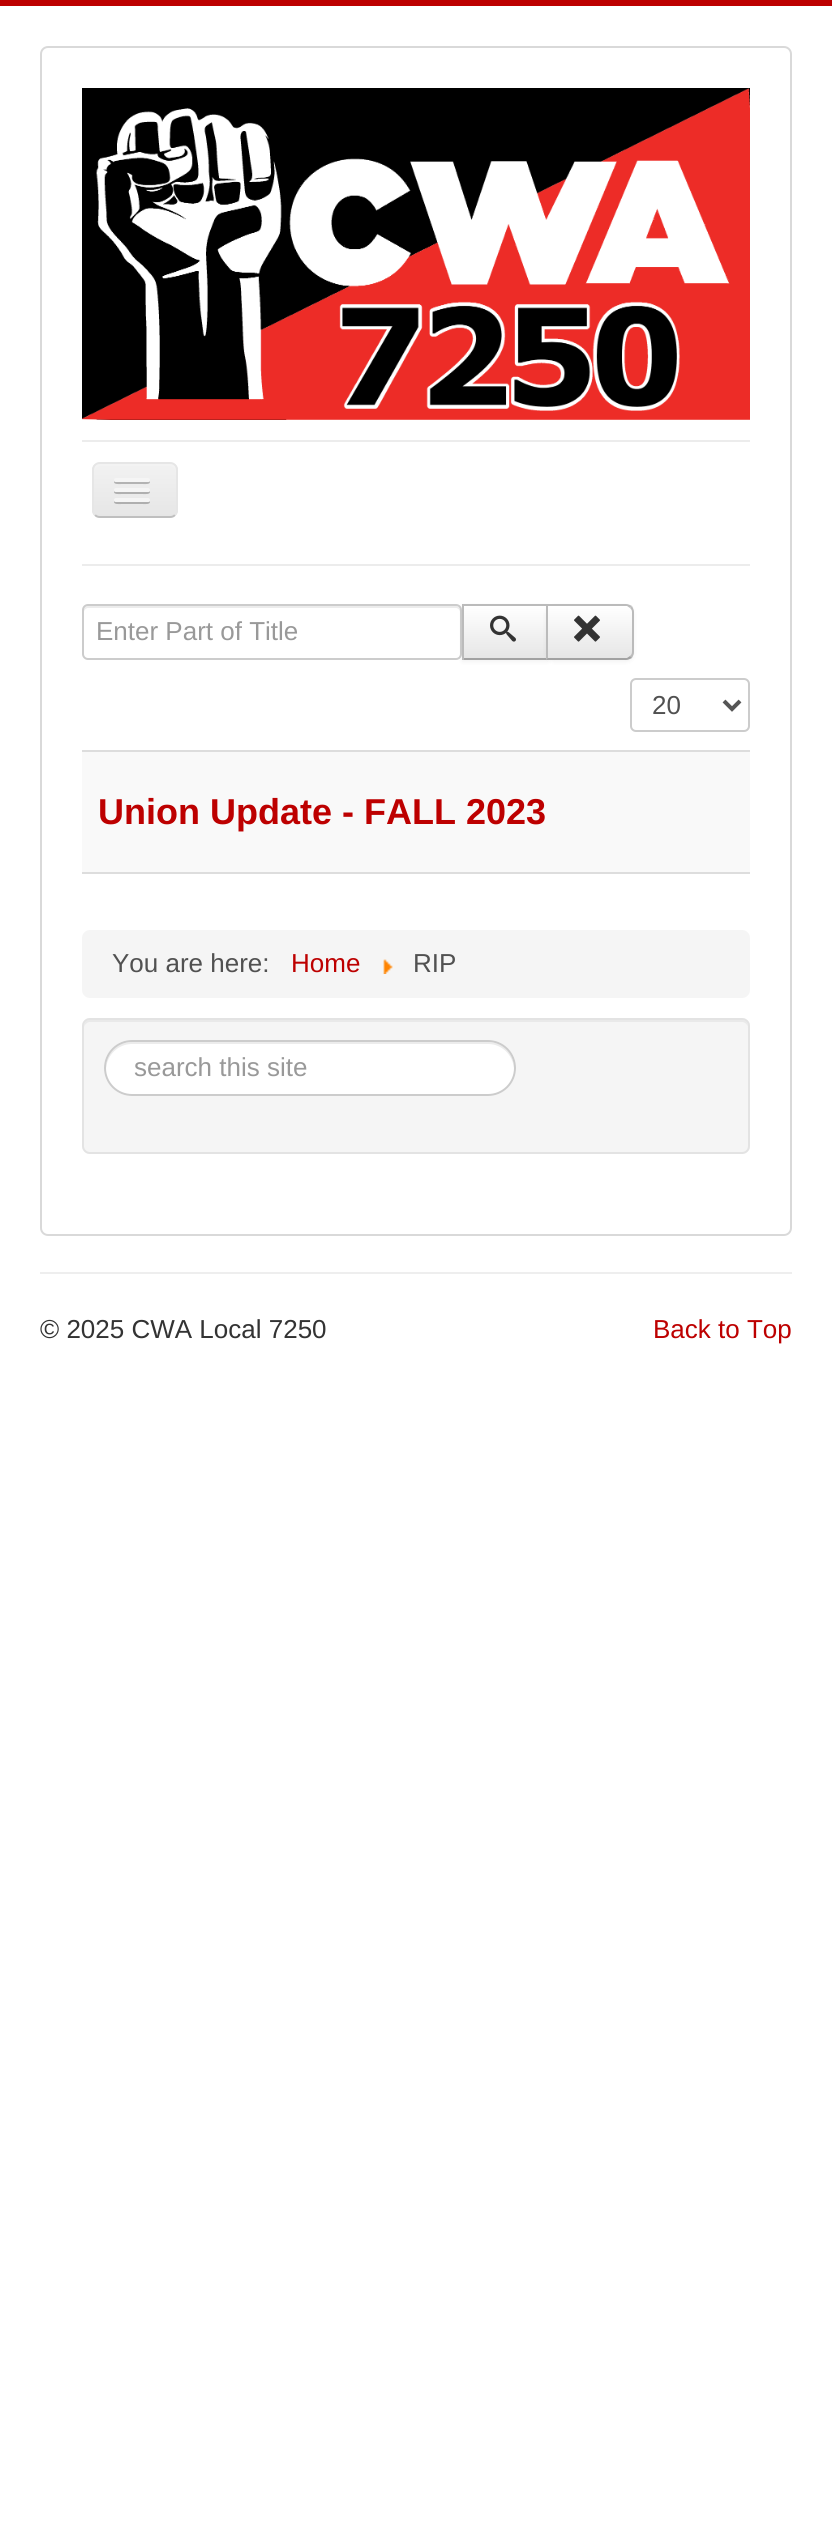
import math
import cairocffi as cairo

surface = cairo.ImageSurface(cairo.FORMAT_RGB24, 832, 2523)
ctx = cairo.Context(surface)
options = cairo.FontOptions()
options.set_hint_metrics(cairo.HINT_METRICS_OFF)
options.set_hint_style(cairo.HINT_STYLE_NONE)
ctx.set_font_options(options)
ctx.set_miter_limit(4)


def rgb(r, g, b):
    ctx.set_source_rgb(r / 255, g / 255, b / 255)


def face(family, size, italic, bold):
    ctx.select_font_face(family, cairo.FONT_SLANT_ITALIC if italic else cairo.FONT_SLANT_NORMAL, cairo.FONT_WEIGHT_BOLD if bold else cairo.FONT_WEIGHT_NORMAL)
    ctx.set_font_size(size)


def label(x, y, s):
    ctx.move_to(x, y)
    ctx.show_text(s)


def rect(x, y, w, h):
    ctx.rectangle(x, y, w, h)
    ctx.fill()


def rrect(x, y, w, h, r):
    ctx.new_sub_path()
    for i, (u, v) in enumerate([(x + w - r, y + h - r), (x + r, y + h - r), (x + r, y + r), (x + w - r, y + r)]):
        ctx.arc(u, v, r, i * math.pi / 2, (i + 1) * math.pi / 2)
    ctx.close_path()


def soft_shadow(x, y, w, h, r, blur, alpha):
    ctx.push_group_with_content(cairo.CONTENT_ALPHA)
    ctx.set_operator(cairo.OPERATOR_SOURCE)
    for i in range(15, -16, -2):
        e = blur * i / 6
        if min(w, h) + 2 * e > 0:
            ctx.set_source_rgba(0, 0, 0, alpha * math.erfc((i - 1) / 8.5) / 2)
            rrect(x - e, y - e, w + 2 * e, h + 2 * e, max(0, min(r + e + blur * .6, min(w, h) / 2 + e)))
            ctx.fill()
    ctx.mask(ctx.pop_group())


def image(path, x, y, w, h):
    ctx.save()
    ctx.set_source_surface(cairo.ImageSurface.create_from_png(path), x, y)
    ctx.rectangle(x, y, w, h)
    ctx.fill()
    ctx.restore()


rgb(255, 255, 255)
ctx.paint()
rgb(189, 0, 0)
rect(0, 0, 832, 6)
rrect(41, 47, 750, 1188, 7)
rgb(217, 217, 217)
ctx.stroke()
image('image0.png', 82, 88, 668, 332)
rgb(236, 236, 236)
rect(82, 440, 668, 2)
rect(82, 564, 668, 2)
ctx.save()
rrect(92, 462, 86, 56, 8)
ctx.clip()
gradient = cairo.LinearGradient(135, 464, 135, 516)
gradient.add_color_stop_rgba(0, 0.949, 0.949, 0.949, 1)
gradient.add_color_stop_rgba(1, 0.902, 0.902, 0.902, 1)
ctx.set_source(gradient)
rect(92, 464, 86, 52)
ctx.restore()
rgb(243, 243, 243)
ctx.new_path()
ctx.move_to(100, 466)
ctx.line_to(170, 466)
ctx.curve_to(173, 466, 176, 469, 176, 472)
ctx.curve_to(176, 461, 167, 464, 158, 464)
ctx.line_to(112, 464)
ctx.curve_to(103, 464, 94, 461, 94, 472)
ctx.curve_to(94, 469, 97, 466, 100, 466)
ctx.close_path()
ctx.fill()
ctx.new_path()
ctx.move_to(175, 515)
ctx.curve_to(173.5, 516.5, 172, 517, 170, 517)
ctx.line_to(100, 517)
ctx.curve_to(98, 517, 96.5, 516.5, 95, 515)
rgb(191, 191, 191)
ctx.stroke()
ctx.new_path()
ctx.move_to(95, 515)
ctx.curve_to(93.5, 513.5, 93, 512, 93, 510)
ctx.line_to(93, 470)
ctx.curve_to(93, 468, 93.5, 466.5, 95, 465)
ctx.curve_to(96.5, 463.5, 98, 463, 100, 463)
ctx.line_to(170, 463)
ctx.curve_to(172, 463, 173.5, 463.5, 175, 465)
ctx.curve_to(176.5, 466.5, 177, 468, 177, 470)
ctx.line_to(177, 510)
ctx.curve_to(177, 512, 176.5, 513.5, 175, 515)
rgb(230, 230, 230)
ctx.stroke()
rgb(179, 179, 179)
ctx.new_path()
ctx.move_to(114.5, 481)
ctx.curve_to(112, 485, 121, 484, 121.5, 484)
ctx.line_to(142.5, 484)
ctx.curve_to(143, 484, 152, 485, 149.5, 481)
ctx.curve_to(149.5, 481.5, 148.5, 482, 148, 482)
ctx.line_to(116, 482)
ctx.curve_to(115.5, 482, 114.5, 481.5, 114.5, 481)
ctx.close_path()
ctx.fill()
rgb(245, 245, 245)
rrect(114, 478, 36, 4, 2)
ctx.fill()
rgb(176, 176, 176)
ctx.new_path()
ctx.move_to(114.5, 491)
ctx.curve_to(112, 495, 121, 494, 121.5, 494)
ctx.line_to(142.5, 494)
ctx.curve_to(143, 494, 152, 495, 149.5, 491)
ctx.curve_to(149.5, 491.5, 148.5, 492, 148, 492)
ctx.line_to(116, 492)
ctx.curve_to(115.5, 492, 114.5, 491.5, 114.5, 491)
ctx.close_path()
ctx.fill()
rgb(245, 245, 245)
rrect(114, 488, 36, 4, 2)
ctx.fill()
rgb(175, 175, 175)
ctx.new_path()
ctx.move_to(114.5, 501)
ctx.curve_to(112, 505, 121, 504, 121.5, 504)
ctx.line_to(142.5, 504)
ctx.curve_to(143, 504, 152, 505, 149.5, 501)
ctx.curve_to(149.5, 501.5, 148.5, 502, 148, 502)
ctx.line_to(116, 502)
ctx.curve_to(115.5, 502, 114.5, 501.5, 114.5, 501)
ctx.close_path()
ctx.fill()
rgb(245, 245, 245)
rrect(114, 498, 36, 4, 2)
ctx.fill()
rgb(236, 236, 236)
ctx.new_path()
ctx.move_to(88, 608)
ctx.line_to(456, 608)
ctx.curve_to(458, 608, 460, 610, 460, 612)
ctx.line_to(460, 610)
ctx.curve_to(460, 608, 458, 606, 456, 606)
ctx.line_to(88, 606)
ctx.curve_to(86, 606, 84, 608, 84, 610)
ctx.line_to(84, 612)
ctx.curve_to(84, 610, 86, 608, 88, 608)
ctx.close_path()
ctx.fill()
rrect(83, 605, 378, 54, 5)
rgb(204, 204, 204)
ctx.stroke()
face('Liberation Sans', 26, 0, 0)
rgb(153, 153, 153)
label(96, 640, 'Enter Part of Title')
rgb(0, 0, 0)
soft_shadow(462, 606, 86, 56, 0, 2, 0.05)
gradient = cairo.LinearGradient(505, 606, 505, 658)
gradient.add_color_stop_rgba(0, 1, 1, 1, 1)
gradient.add_color_stop_rgba(1, 0.902, 0.902, 0.902, 1)
ctx.set_source(gradient)
rect(464, 606, 82, 52)
rgb(187, 187, 187)
rect(462, 604, 86, 2)
rgb(162, 162, 162)
rect(462, 658, 86, 2)
rgb(187, 187, 187)
rect(462, 604, 2, 56)
image('image1.png', 490, 615, 26, 27)
rgb(0, 0, 0)
soft_shadow(546, 606, 88, 56, 8, 2, 0.05)
ctx.save()
ctx.new_path()
ctx.move_to(546, 604)
ctx.line_to(626, 604)
ctx.curve_to(630.5, 604, 634, 607.5, 634, 612)
ctx.line_to(634, 652)
ctx.curve_to(634, 656.5, 630.5, 660, 626, 660)
ctx.line_to(546, 660)
ctx.close_path()
ctx.clip()
gradient = cairo.LinearGradient(590, 606, 590, 658)
gradient.add_color_stop_rgba(0, 1, 1, 1, 1)
gradient.add_color_stop_rgba(1, 0.902, 0.902, 0.902, 1)
ctx.set_source(gradient)
rect(548, 606, 86, 52)
ctx.restore()
rgb(187, 187, 187)
ctx.new_path()
ctx.move_to(546, 604)
ctx.line_to(548, 606)
ctx.line_to(627, 606)
ctx.line_to(630, 608)
ctx.line_to(632, 606)
ctx.curve_to(630, 605, 628, 604, 626, 604)
ctx.close_path()
ctx.fill()
ctx.new_path()
ctx.move_to(634, 652)
ctx.line_to(634, 612)
ctx.curve_to(634, 610, 633, 608, 632, 606)
ctx.line_to(630, 608)
ctx.curve_to(631, 609, 632, 610, 632, 612)
ctx.line_to(632, 652)
ctx.curve_to(632, 654, 631, 655, 630, 656)
ctx.line_to(632, 658)
ctx.curve_to(633, 656, 634, 654, 634, 652)
ctx.close_path()
ctx.fill()
rgb(162, 162, 162)
ctx.new_path()
ctx.move_to(626, 660)
ctx.curve_to(628, 660, 630, 659, 632, 658)
ctx.line_to(630, 656)
ctx.line_to(627, 658)
ctx.line_to(548, 658)
ctx.line_to(546, 660)
ctx.close_path()
ctx.fill()
rgb(187, 187, 187)
ctx.new_path()
ctx.move_to(546, 604)
ctx.line_to(546, 660)
ctx.line_to(548, 658)
ctx.line_to(548, 606)
ctx.close_path()
ctx.fill()
image('image2.png', 574, 615, 26, 27)
rrect(631, 679, 118, 52, 5)
rgb(204, 204, 204)
ctx.stroke()
ctx.new_path()
ctx.move_to(724, 701)
ctx.line_to(732, 709)
ctx.line_to(740, 701)
rgb(85, 85, 85)
ctx.set_line_width(4)
ctx.stroke()
rgb(81, 81, 81)
label(652, 714, '20')
rgb(221, 221, 221)
rect(82, 750, 668, 2)
rgb(249, 249, 249)
rect(82, 752, 668, 120)
rgb(221, 221, 221)
rect(82, 872, 668, 2)
face('Liberation Sans', 36, 0, 1)
rgb(189, 0, 0)
label(98, 824, 'Union Update - FALL 2023')
rgb(245, 245, 245)
rrect(82, 930, 668, 68, 8)
ctx.fill()
face('Liberation Sans', 26, 0, 0)
rgb(81, 81, 81)
label(112, 972, 'You are here:')
rgb(189, 0, 0)
label(291, 972, 'Home')
image('image3.png', 383, 959, 10, 15)
rgb(81, 81, 81)
label(413, 972, 'RIP')
rgb(245, 245, 245)
rrect(82, 1018, 668, 136, 8)
ctx.fill()
rgb(233, 233, 233)
ctx.new_path()
ctx.move_to(90, 1022)
ctx.line_to(742, 1022)
ctx.curve_to(745, 1022, 748, 1025, 748, 1028)
ctx.curve_to(748, 1024, 747, 1020, 742, 1020)
ctx.line_to(90, 1020)
ctx.curve_to(85, 1020, 84, 1024, 84, 1028)
ctx.curve_to(84, 1025, 87, 1022, 90, 1022)
ctx.close_path()
ctx.fill()
rrect(83, 1019, 666, 134, 7)
rgb(227, 227, 227)
ctx.set_line_width(2)
ctx.stroke()
rgb(255, 255, 255)
rrect(104, 1040, 412, 56, 28)
ctx.fill()
rgb(236, 236, 236)
ctx.new_path()
ctx.move_to(132, 1044)
ctx.line_to(488, 1044)
ctx.curve_to(502, 1044, 513, 1055, 514, 1069)
ctx.curve_to(515, 1054, 503, 1042, 488, 1042)
ctx.line_to(132, 1042)
ctx.curve_to(117, 1042, 105, 1054, 106, 1069)
ctx.curve_to(107, 1055, 118, 1044, 132, 1044)
ctx.close_path()
ctx.fill()
rrect(105, 1041, 410, 54, 27)
rgb(204, 204, 204)
ctx.stroke()
rgb(153, 153, 153)
label(134, 1076, 'search this site')
rgb(238, 238, 238)
rect(40, 1272, 752, 2)
rgb(51, 51, 51)
label(40, 1338, '© 2025 CWA Local 7250')
rgb(189, 0, 0)
label(653, 1338, 'Back to Top')
surface.write_to_png('render.png')
